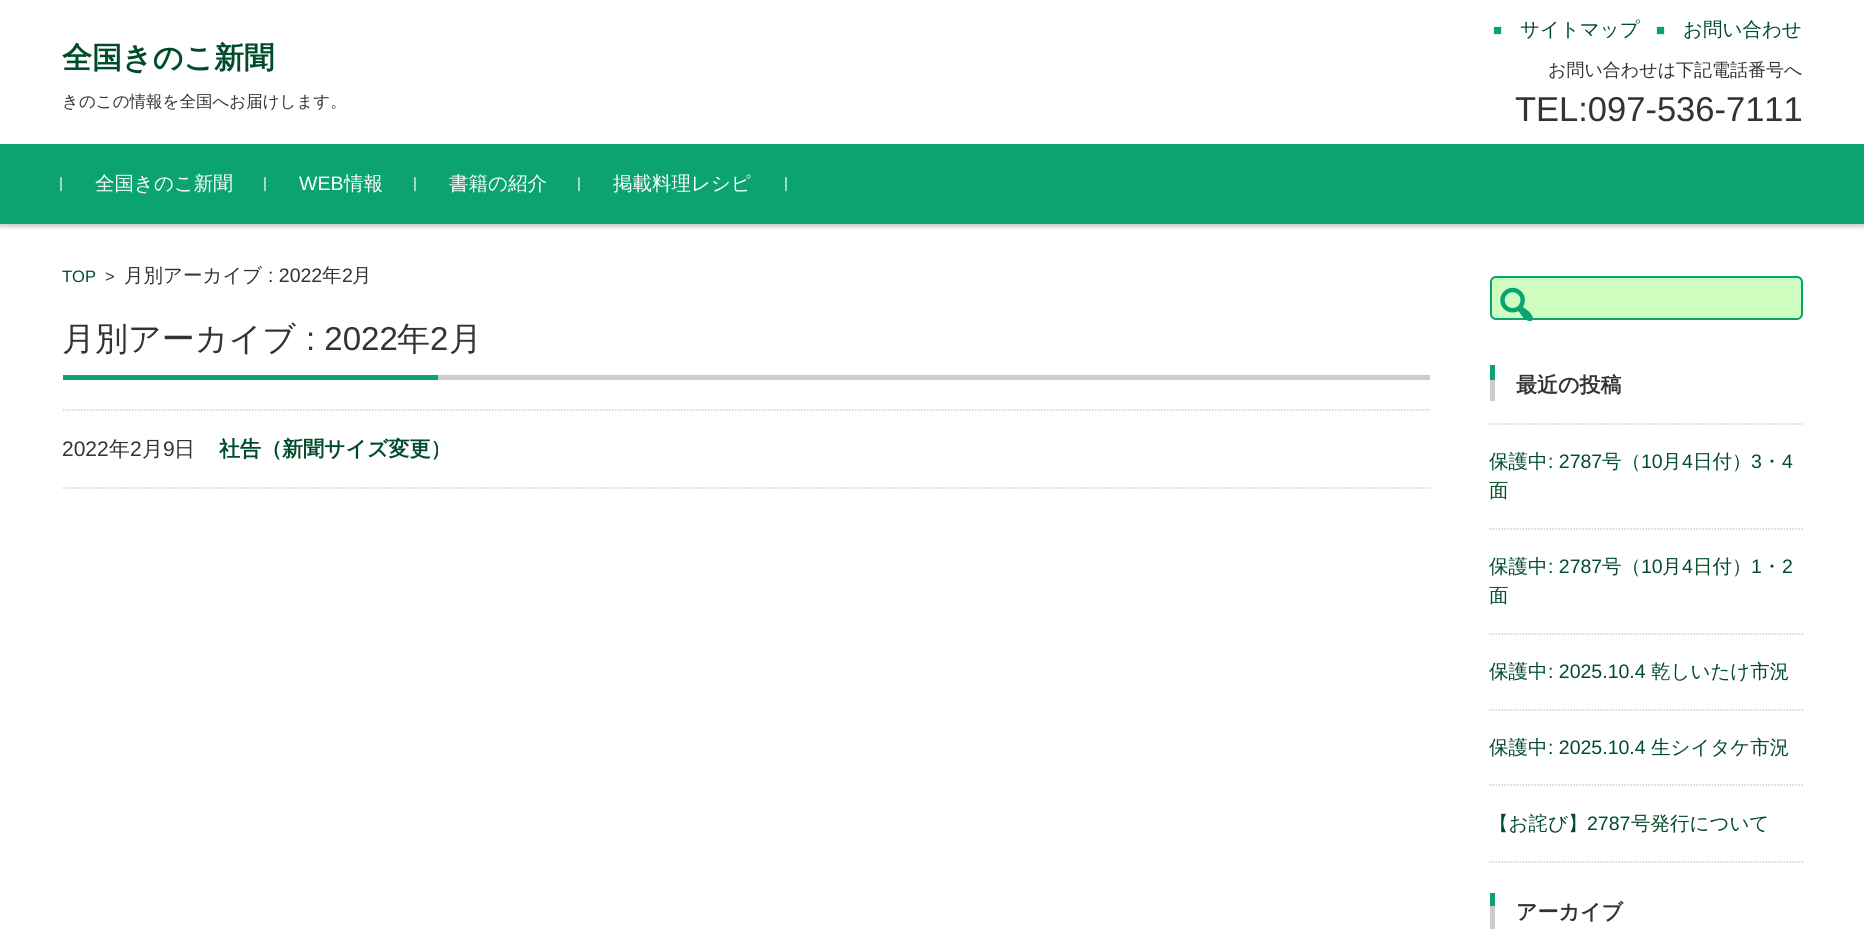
import math
import cairocffi as cairo

surface = cairo.ImageSurface(cairo.FORMAT_RGB24, 1864, 941)
ctx = cairo.Context(surface)
options = cairo.FontOptions()
options.set_hint_metrics(cairo.HINT_METRICS_OFF)
options.set_hint_style(cairo.HINT_STYLE_NONE)
ctx.set_font_options(options)
ctx.set_miter_limit(4)


def rgb(r, g, b):
    ctx.set_source_rgb(r / 255, g / 255, b / 255)


def face(family, size, italic, bold):
    ctx.select_font_face(family, cairo.FONT_SLANT_ITALIC if italic else cairo.FONT_SLANT_NORMAL, cairo.FONT_WEIGHT_BOLD if bold else cairo.FONT_WEIGHT_NORMAL)
    ctx.set_font_size(size)


def label(x, y, s):
    ctx.move_to(x, y)
    ctx.show_text(s)


def rect(x, y, w, h):
    ctx.rectangle(x, y, w, h)
    ctx.fill()


def rrect(x, y, w, h, r):
    ctx.new_sub_path()
    for i, (u, v) in enumerate([(x + w - r, y + h - r), (x + r, y + h - r), (x + r, y + r), (x + w - r, y + r)]):
        ctx.arc(u, v, r, i * math.pi / 2, (i + 1) * math.pi / 2)
    ctx.close_path()


def soft_shadow(x, y, w, h, r, blur, alpha):
    ctx.push_group_with_content(cairo.CONTENT_ALPHA)
    ctx.set_operator(cairo.OPERATOR_SOURCE)
    for i in range(15, -16, -2):
        e = blur * i / 6
        if min(w, h) + 2 * e > 0:
            ctx.set_source_rgba(0, 0, 0, alpha * math.erfc((i - 1) / 8.5) / 2)
            rrect(x - e, y - e, w + 2 * e, h + 2 * e, max(0, min(r + e + blur * .6, min(w, h) / 2 + e)))
            ctx.fill()
    ctx.mask(ctx.pop_group())


def image(path, x, y, w, h):
    ctx.save()
    ctx.set_source_surface(cairo.ImageSurface.create_from_png(path), x, y)
    ctx.rectangle(x, y, w, h)
    ctx.fill()
    ctx.restore()


rgb(255, 255, 255)
ctx.paint()
face('WenQuanYi Zen Hei', 30, 0, 1)
rgb(0, 76, 42)
label(62, 68, '全国きのこ新聞')
face('WenQuanYi Zen Hei Medium', 16.5, 0, 0)
rgb(51, 51, 51)
label(62, 107, 'きのこの情報を全国へお届けします。')
face('Liberation Sans', 15, 0, 0)
rgb(11, 163, 112)
label(1493, 35, '■')
face('WenQuanYi Zen Hei Medium', 19.5, 0, 0)
rgb(0, 76, 42)
label(1520, 36, 'サイトマップ')
face('Liberation Sans', 15, 0, 0)
rgb(11, 163, 112)
label(1656, 35, '■')
face('WenQuanYi Zen Hei Medium', 19.5, 0, 0)
rgb(0, 76, 42)
label(1683, 36, 'お問い合わせ')
face('WenQuanYi Zen Hei Medium', 18, 0, 0)
rgb(51, 51, 51)
label(1548, 76, 'お問い合わせは下記電話番号へ')
face('Liberation Sans', 34.5, 0, 0)
label(1515, 121, 'TEL:097-536-7111')
rgb(0, 0, 0)
soft_shadow(0, 147, 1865, 80, 0, 2, 0.2)
rgb(11, 163, 112)
rect(0, 144, 1864, 80)
face('Liberation Sans', 15, 0, 0)
rgb(255, 255, 255)
label(59, 188, '|')
face('WenQuanYi Zen Hei Medium', 19.5, 0, 0)
label(95, 190, '全国きのこ新聞')
face('Liberation Sans', 15, 0, 0)
label(263, 188, '|')
face('Liberation Sans', 19.5, 0, 0)
label(299, 190, 'WEB')
face('WenQuanYi Zen Hei Medium', 19.5, 0, 0)
label(344, 190, '情報')
face('Liberation Sans', 15, 0, 0)
label(413, 188, '|')
face('WenQuanYi Zen Hei Medium', 19.5, 0, 0)
label(449, 190, '書籍の紹介')
face('Liberation Sans', 15, 0, 0)
label(577, 188, '|')
face('WenQuanYi Zen Hei Medium', 19.5, 0, 0)
label(613, 190, '掲載料理レシピ')
face('Liberation Sans', 15, 0, 0)
label(784, 188, '|')
face('Liberation Sans', 16.5, 0, 0)
rgb(0, 76, 42)
label(62, 282, 'TOP')
rgb(51, 51, 51)
label(105, 282, '>')
face('WenQuanYi Zen Hei Medium', 19.5, 0, 0)
label(124, 282, '月別アーカイブ')
face('Liberation Sans', 19.5, 0, 0)
label(268, 282, ': 2022')
face('WenQuanYi Zen Hei Medium', 19.5, 0, 0)
label(322, 282, '年')
face('Liberation Sans', 19.5, 0, 0)
label(342, 282, '2')
face('WenQuanYi Zen Hei Medium', 19.5, 0, 0)
label(352, 282, '月')
rgb(204, 204, 204)
rect(438, 375, 992, 5)
face('WenQuanYi Zen Hei Medium', 33, 0, 0)
rgb(51, 51, 51)
label(62, 350, '月別アーカイブ')
face('Liberation Sans', 33, 0, 0)
label(306, 350, ': 2022')
face('WenQuanYi Zen Hei Medium', 33, 0, 0)
label(397, 350, '年')
face('Liberation Sans', 33, 0, 0)
label(430, 350, '2')
face('WenQuanYi Zen Hei Medium', 33, 0, 0)
label(449, 350, '月')
rgb(11, 163, 112)
rect(63, 375, 375, 5)
ctx.new_path()
ctx.move_to(63, 488)
ctx.line_to(1429.5, 488)
rgb(204, 204, 204)
ctx.set_line_width(1.5)
ctx.set_dash([1.5, 1.5])
ctx.stroke()
ctx.new_path()
ctx.move_to(63, 410)
ctx.line_to(1429.5, 410)
ctx.stroke()
face('Liberation Sans', 21, 0, 0)
rgb(51, 51, 51)
label(62, 456, '2022')
face('WenQuanYi Zen Hei Medium', 21, 0, 0)
label(109, 456, '年')
face('Liberation Sans', 21, 0, 0)
label(130, 456, '2')
face('WenQuanYi Zen Hei Medium', 21, 0, 0)
label(142, 456, '月')
face('Liberation Sans', 21, 0, 0)
label(163, 456, '9')
face('WenQuanYi Zen Hei Medium', 21, 0, 0)
label(174, 456, '日')
face('WenQuanYi Zen Hei', 21, 0, 1)
rgb(0, 76, 42)
label(219, 456, '社告（新聞サイズ変更）')
rgb(206, 255, 193)
rrect(1491, 277, 311, 42, 5)
ctx.fill_preserve()
rgb(11, 163, 112)
ctx.set_line_width(2)
ctx.set_dash([])
ctx.stroke()
image('image0.png', 1500, 287, 33, 35)
rgb(204, 204, 204)
rect(1490, 380, 5, 21)
rgb(11, 163, 112)
rect(1490, 365, 5, 15)
rgb(51, 51, 51)
label(1516, 392, '最近の投稿')
ctx.new_path()
ctx.move_to(1489.5, 424)
ctx.line_to(1803, 424)
rgb(204, 204, 204)
ctx.set_line_width(1.5)
ctx.set_dash([1.5, 1.5])
ctx.stroke()
ctx.new_path()
ctx.move_to(1489.5, 529)
ctx.line_to(1803, 529)
ctx.stroke()
face('WenQuanYi Zen Hei Medium', 19.5, 0, 0)
rgb(0, 76, 42)
label(1489, 468, '保護中')
face('Liberation Sans', 19.5, 0, 0)
label(1548, 468, ': 2787')
face('WenQuanYi Zen Hei Medium', 19.5, 0, 0)
label(1602, 468, '号（')
face('Liberation Sans', 19.5, 0, 0)
label(1641, 468, '10')
face('WenQuanYi Zen Hei Medium', 19.5, 0, 0)
label(1662, 468, '月')
face('Liberation Sans', 19.5, 0, 0)
label(1682, 468, '4')
face('WenQuanYi Zen Hei Medium', 19.5, 0, 0)
label(1693, 468, '日付）')
face('Liberation Sans', 19.5, 0, 0)
label(1751, 468, '3')
face('WenQuanYi Zen Hei Medium', 19.5, 0, 0)
label(1762, 468, '・')
face('Liberation Sans', 19.5, 0, 0)
label(1782, 468, '4')
face('WenQuanYi Zen Hei Medium', 19.5, 0, 0)
label(1489, 497, '面')
ctx.new_path()
ctx.move_to(1489.5, 634)
ctx.line_to(1803, 634)
rgb(204, 204, 204)
ctx.stroke()
rgb(0, 76, 42)
label(1489, 573, '保護中')
face('Liberation Sans', 19.5, 0, 0)
label(1548, 573, ': 2787')
face('WenQuanYi Zen Hei Medium', 19.5, 0, 0)
label(1602, 573, '号（')
face('Liberation Sans', 19.5, 0, 0)
label(1641, 573, '10')
face('WenQuanYi Zen Hei Medium', 19.5, 0, 0)
label(1662, 573, '月')
face('Liberation Sans', 19.5, 0, 0)
label(1682, 573, '4')
face('WenQuanYi Zen Hei Medium', 19.5, 0, 0)
label(1693, 573, '日付）')
face('Liberation Sans', 19.5, 0, 0)
label(1751, 573, '1')
face('WenQuanYi Zen Hei Medium', 19.5, 0, 0)
label(1762, 573, '・')
face('Liberation Sans', 19.5, 0, 0)
label(1782, 573, '2')
face('WenQuanYi Zen Hei Medium', 19.5, 0, 0)
label(1489, 602, '面')
ctx.new_path()
ctx.move_to(1489.5, 710)
ctx.line_to(1803, 710)
rgb(204, 204, 204)
ctx.stroke()
rgb(0, 76, 42)
label(1489, 678, '保護中')
face('Liberation Sans', 19.5, 0, 0)
label(1548, 678, ': 2025.10.4')
face('WenQuanYi Zen Hei Medium', 19.5, 0, 0)
label(1651, 678, '乾しいたけ市況')
ctx.new_path()
ctx.move_to(1489.5, 785)
ctx.line_to(1803, 785)
rgb(204, 204, 204)
ctx.stroke()
rgb(0, 76, 42)
label(1489, 754, '保護中')
face('Liberation Sans', 19.5, 0, 0)
label(1548, 754, ': 2025.10.4')
face('WenQuanYi Zen Hei Medium', 19.5, 0, 0)
label(1651, 754, '生シイタケ市況')
ctx.new_path()
ctx.move_to(1489.5, 862)
ctx.line_to(1803, 862)
rgb(204, 204, 204)
ctx.stroke()
rgb(0, 76, 42)
label(1489, 830, '【お詫び】')
face('Liberation Sans', 19.5, 0, 0)
label(1587, 830, '2787')
face('WenQuanYi Zen Hei Medium', 19.5, 0, 0)
label(1631, 830, '号発行について')
rgb(204, 204, 204)
rect(1490, 906, 5, 23)
rgb(11, 163, 112)
rect(1490, 893, 5, 13)
face('WenQuanYi Zen Hei', 21, 0, 1)
rgb(51, 51, 51)
label(1516, 919, 'アーカイブ')
surface.write_to_png('render.png')
